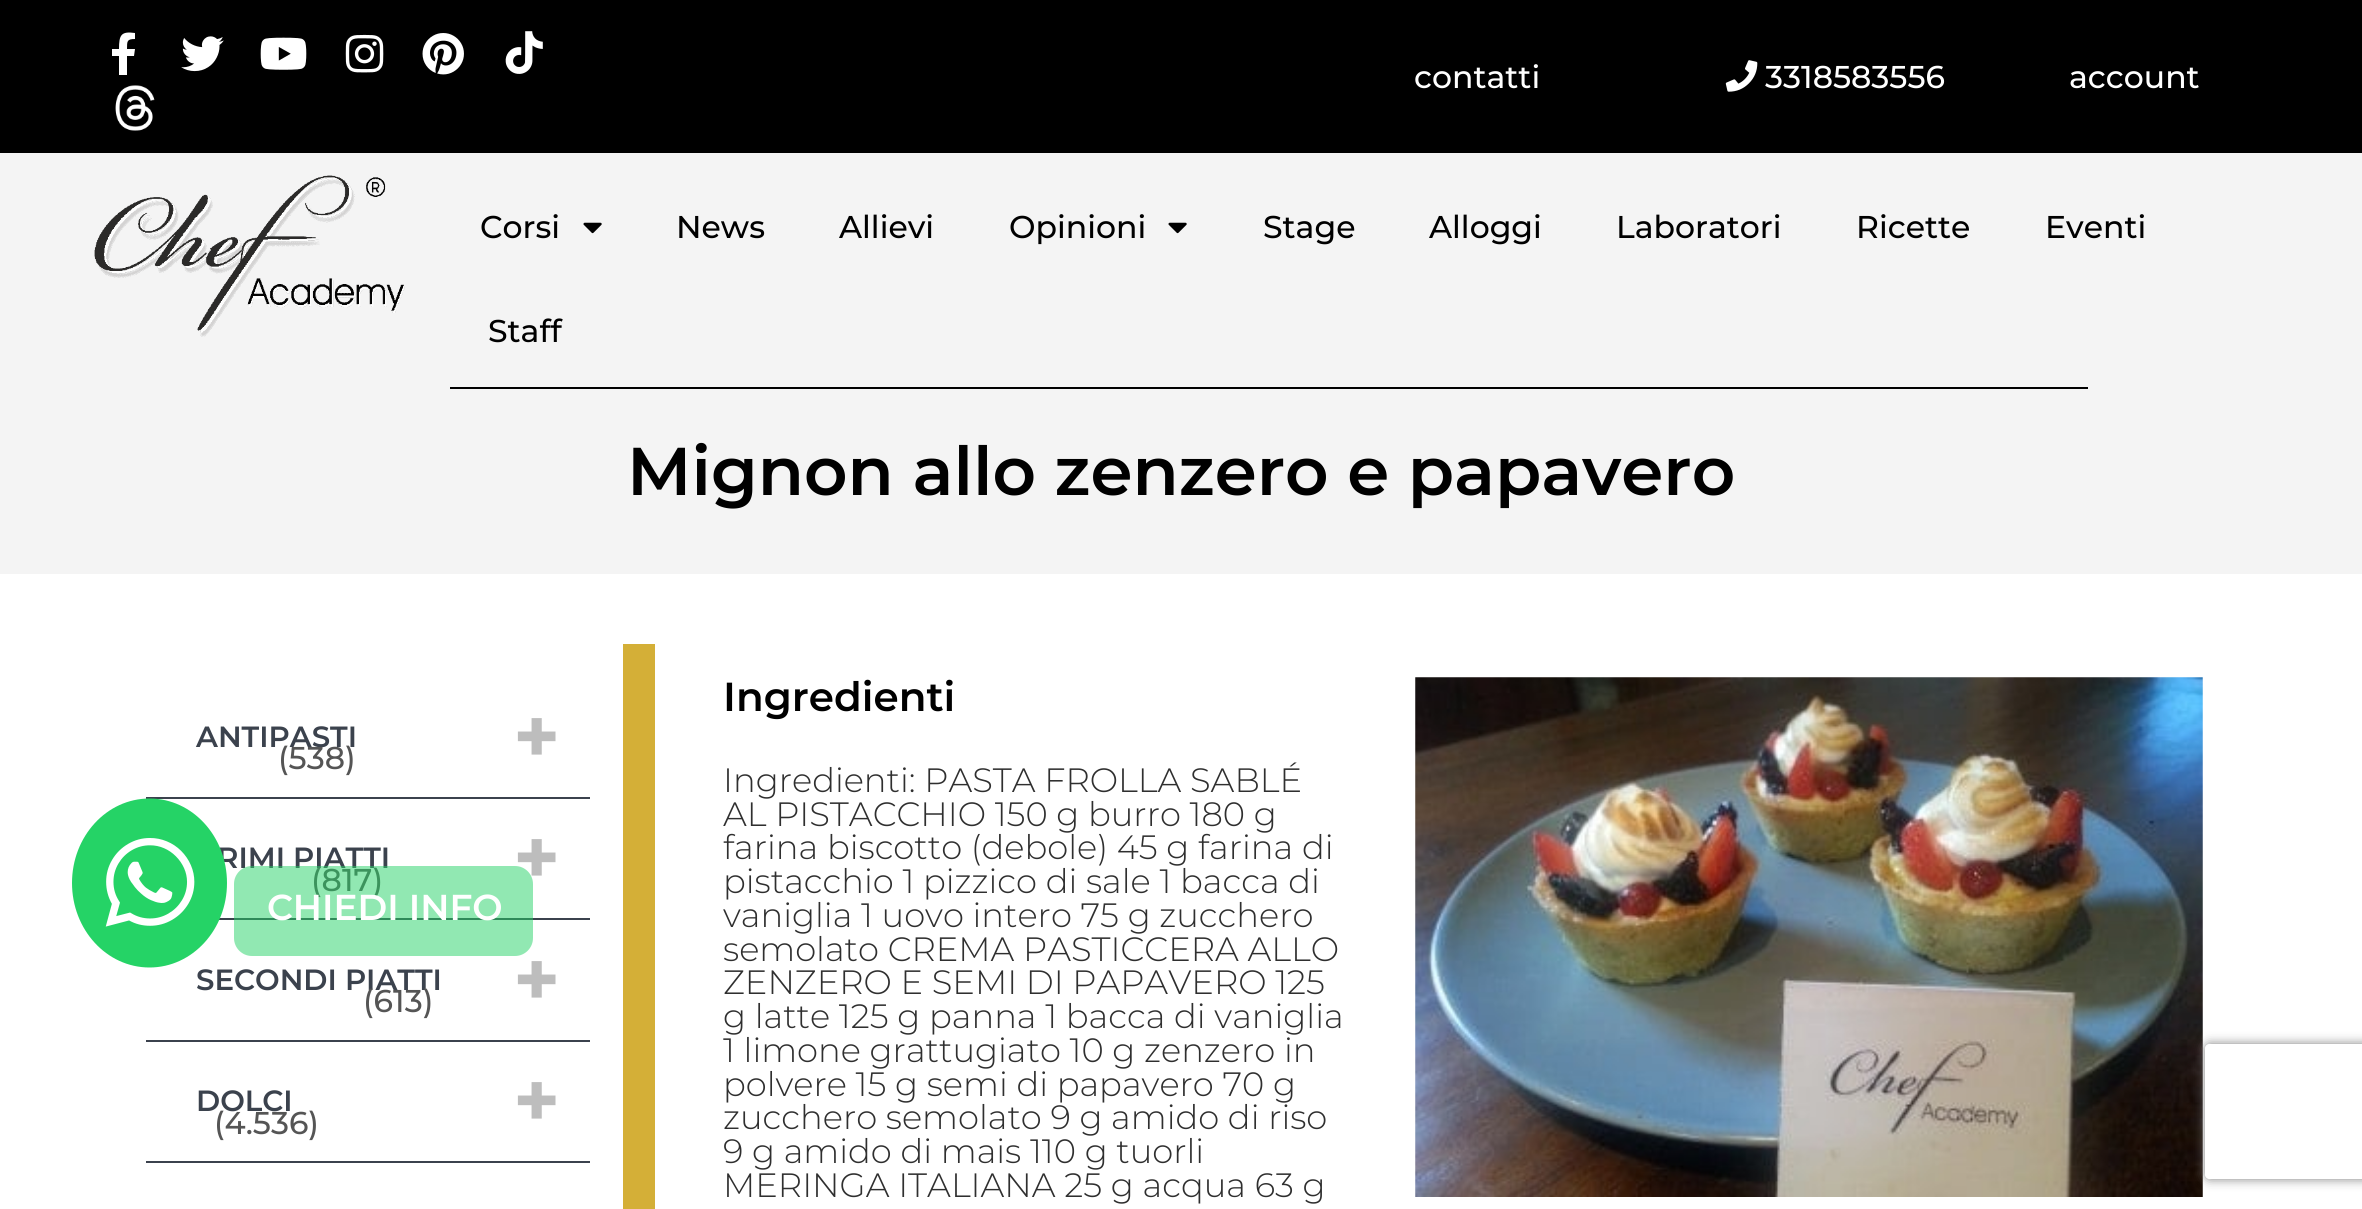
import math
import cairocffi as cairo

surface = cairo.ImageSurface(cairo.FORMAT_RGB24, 2362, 1209)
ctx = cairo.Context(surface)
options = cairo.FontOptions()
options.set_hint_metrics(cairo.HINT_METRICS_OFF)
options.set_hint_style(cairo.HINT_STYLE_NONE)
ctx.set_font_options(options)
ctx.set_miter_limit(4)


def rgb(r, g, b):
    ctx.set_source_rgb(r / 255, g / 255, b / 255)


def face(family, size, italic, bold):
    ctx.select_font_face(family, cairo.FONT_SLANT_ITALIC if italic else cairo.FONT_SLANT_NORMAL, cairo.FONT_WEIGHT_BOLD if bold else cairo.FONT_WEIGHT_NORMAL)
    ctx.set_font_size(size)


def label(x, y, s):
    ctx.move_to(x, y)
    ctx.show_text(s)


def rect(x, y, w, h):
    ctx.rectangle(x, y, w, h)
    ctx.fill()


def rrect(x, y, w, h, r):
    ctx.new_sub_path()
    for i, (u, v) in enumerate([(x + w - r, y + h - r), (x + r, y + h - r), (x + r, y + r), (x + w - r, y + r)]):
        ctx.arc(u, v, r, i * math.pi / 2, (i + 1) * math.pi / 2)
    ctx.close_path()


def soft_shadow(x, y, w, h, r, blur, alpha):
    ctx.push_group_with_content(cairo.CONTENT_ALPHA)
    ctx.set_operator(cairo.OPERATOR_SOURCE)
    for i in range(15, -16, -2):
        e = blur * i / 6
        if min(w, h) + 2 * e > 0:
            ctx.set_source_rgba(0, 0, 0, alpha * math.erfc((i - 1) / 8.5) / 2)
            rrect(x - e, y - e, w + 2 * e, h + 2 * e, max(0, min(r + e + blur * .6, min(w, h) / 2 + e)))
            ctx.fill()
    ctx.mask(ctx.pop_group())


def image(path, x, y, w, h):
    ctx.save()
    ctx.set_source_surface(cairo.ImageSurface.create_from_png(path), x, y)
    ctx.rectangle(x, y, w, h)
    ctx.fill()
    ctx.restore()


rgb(244, 244, 244)
ctx.paint()
rgb(0, 0, 0)
rect(0, 0, 2362, 153)
rgb(255, 255, 255)
ctx.new_path()
ctx.move_to(134, 56)
ctx.line_to(127, 56)
ctx.line_to(127, 75)
ctx.line_to(119, 75)
ctx.line_to(119, 56)
ctx.line_to(112, 56)
ctx.line_to(112, 49)
ctx.line_to(119, 49)
ctx.curve_to(119, 35, 121, 31, 135, 33)
ctx.line_to(135, 39)
ctx.curve_to(127, 39, 127, 41, 127, 49)
ctx.line_to(135, 49)
ctx.close_path()
ctx.fill()
image('image0.png', 181, 36, 43, 36)
image('image1.png', 260, 37, 47, 33)
image('image2.png', 345, 34, 39, 39)
image('image3.png', 422, 33, 42, 42)
image('image4.png', 505, 31, 38, 43)
image('image5.png', 115, 85, 40, 46)
face('Montserrat Medium', 31.5, 0, 0)
label(1414, 88, 'contatti')
image('image6.png', 1725, 60, 33, 32)
label(1765, 88, '3318583556')
label(2069, 88, 'account')
rect(0, 574, 2362, 635)
rgb(59, 66, 77)
rect(146, 797, 444, 2)
rect(219, 918, 371, 2)
face('Montserrat SemiBold', 29.25, 0, 0)
label(217, 868, 'RIMI PIATTI')
rgb(37, 211, 102)
ctx.new_path()
ctx.move_to(149.5, 798.5)
ctx.curve_to(192.5, 798.5, 227, 836.5, 227, 883)
ctx.curve_to(227, 929.5, 192.5, 967.5, 149.5, 967.5)
ctx.curve_to(106.5, 967.5, 72, 929.5, 72, 883)
ctx.curve_to(72, 836.5, 106.5, 798.5, 149.5, 798.5)
ctx.close_path()
ctx.fill()
image('image7.png', 105, 838, 90, 89)
face('Montserrat', 79, 0, 1)
rgb(189, 189, 189)
label(513, 885, '+')
face('Montserrat Medium', 31.5, 0, 0)
rgb(85, 85, 85)
label(311, 891, '(817)')
ctx.set_source_rgba(0.145, 0.827, 0.4, 0.5)
rrect(234, 866, 299, 90, 18)
ctx.fill()
face('Montserrat SemiBold', 36, 0, 0)
rgb(255, 255, 255)
label(267, 920, 'CHIEDI INFO')
image('image8.png', 94, 175, 311, 162)
face('Montserrat Medium', 31.5, 0, 0)
rgb(0, 0, 0)
label(480, 238, 'Corsi')
image('image9.png', 583, 222, 19, 12)
label(676, 238, 'News')
label(839, 238, 'Allievi')
label(1009, 238, 'Opinioni')
image('image9.png', 1168, 222, 19, 12)
label(1263, 238, 'Stage')
label(1429, 238, 'Alloggi')
label(1616, 238, 'Laboratori')
label(1856, 238, 'Ricette')
label(2045, 238, 'Eventi')
label(488, 342, 'Staff')
rect(450, 387, 1638, 2)
face('Montserrat SemiBold', 67.5, 0, 0)
label(627, 495, 'Mignon allo zenzero e papavero')
rgb(212, 175, 55)
rect(623, 644, 32, 565)
face('Montserrat SemiBold', 29.25, 0, 0)
rgb(59, 66, 77)
label(196, 747, 'ANTIPASTI')
face('Montserrat', 79, 0, 1)
rgb(189, 189, 189)
label(513, 764, '+')
face('Montserrat Medium', 31.5, 0, 0)
rgb(85, 85, 85)
label(278, 769, '(538)')
rgb(59, 66, 77)
rect(146, 1040, 444, 2)
face('Montserrat SemiBold', 29.25, 0, 0)
label(196, 990, 'SECONDI PIATTI')
face('Montserrat', 79, 0, 1)
rgb(189, 189, 189)
label(513, 1007, '+')
face('Montserrat Medium', 31.5, 0, 0)
rgb(85, 85, 85)
label(363, 1012, '(613)')
rgb(59, 66, 77)
rect(146, 1161, 444, 2)
face('Montserrat SemiBold', 29.25, 0, 0)
label(196, 1111, 'DOLCI')
face('Montserrat', 79, 0, 1)
rgb(189, 189, 189)
label(513, 1128, '+')
face('Montserrat Medium', 31.5, 0, 0)
rgb(85, 85, 85)
label(214, 1134, '(4.536)')
face('Montserrat SemiBold', 40.5, 0, 0)
rgb(0, 0, 0)
label(723, 711, 'Ingredienti')
face('Montserrat Light', 33.75, 0, 0)
rgb(47, 47, 47)
label(723, 792, 'Ingredienti: PASTA FROLLA SABLÉ')
label(723, 826, 'AL PISTACCHIO 150 g burro 180 g')
label(723, 859, 'farina biscotto (debole) 45 g farina di')
label(723, 893, 'pistacchio 1 pizzico di sale 1 bacca di')
label(723, 927, 'vaniglia 1 uovo intero 75 g zucchero')
label(723, 961, 'semolato CREMA PASTICCERA ALLO')
label(723, 994, 'ZENZERO E SEMI DI PAPAVERO 125')
label(723, 1028, 'g latte 125 g panna 1 bacca di vaniglia')
label(723, 1062, '1 limone grattugiato 10 g zenzero in')
label(723, 1096, 'polvere 15 g semi di papavero 70 g')
label(723, 1129, 'zucchero semolato 9 g amido di riso')
label(723, 1163, '9 g amido di mais 110 g tuorli')
label(723, 1197, 'MERINGA ITALIANA 25 g acqua 63 g')
image('image10.png', 1415, 677, 788, 520)
ctx.save()
ctx.set_fill_rule(cairo.FILL_RULE_EVEN_ODD)
ctx.new_path()
ctx.move_to(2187, 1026)
ctx.line_to(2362, 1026)
ctx.line_to(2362, 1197)
ctx.line_to(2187, 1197)
ctx.close_path()
ctx.move_to(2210, 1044)
ctx.line_to(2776, 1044)
ctx.curve_to(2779, 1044, 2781, 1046, 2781, 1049)
ctx.line_to(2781, 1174)
ctx.curve_to(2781, 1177, 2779, 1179, 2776, 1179)
ctx.line_to(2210, 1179)
ctx.curve_to(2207, 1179, 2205, 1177, 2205, 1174)
ctx.line_to(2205, 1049)
ctx.curve_to(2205, 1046, 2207, 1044, 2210, 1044)
ctx.close_path()
ctx.clip()
rgb(128, 128, 128)
soft_shadow(2205, 1044, 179, 135, 5, 5.5, 1)
ctx.restore()
surface.write_to_png('render.png')
